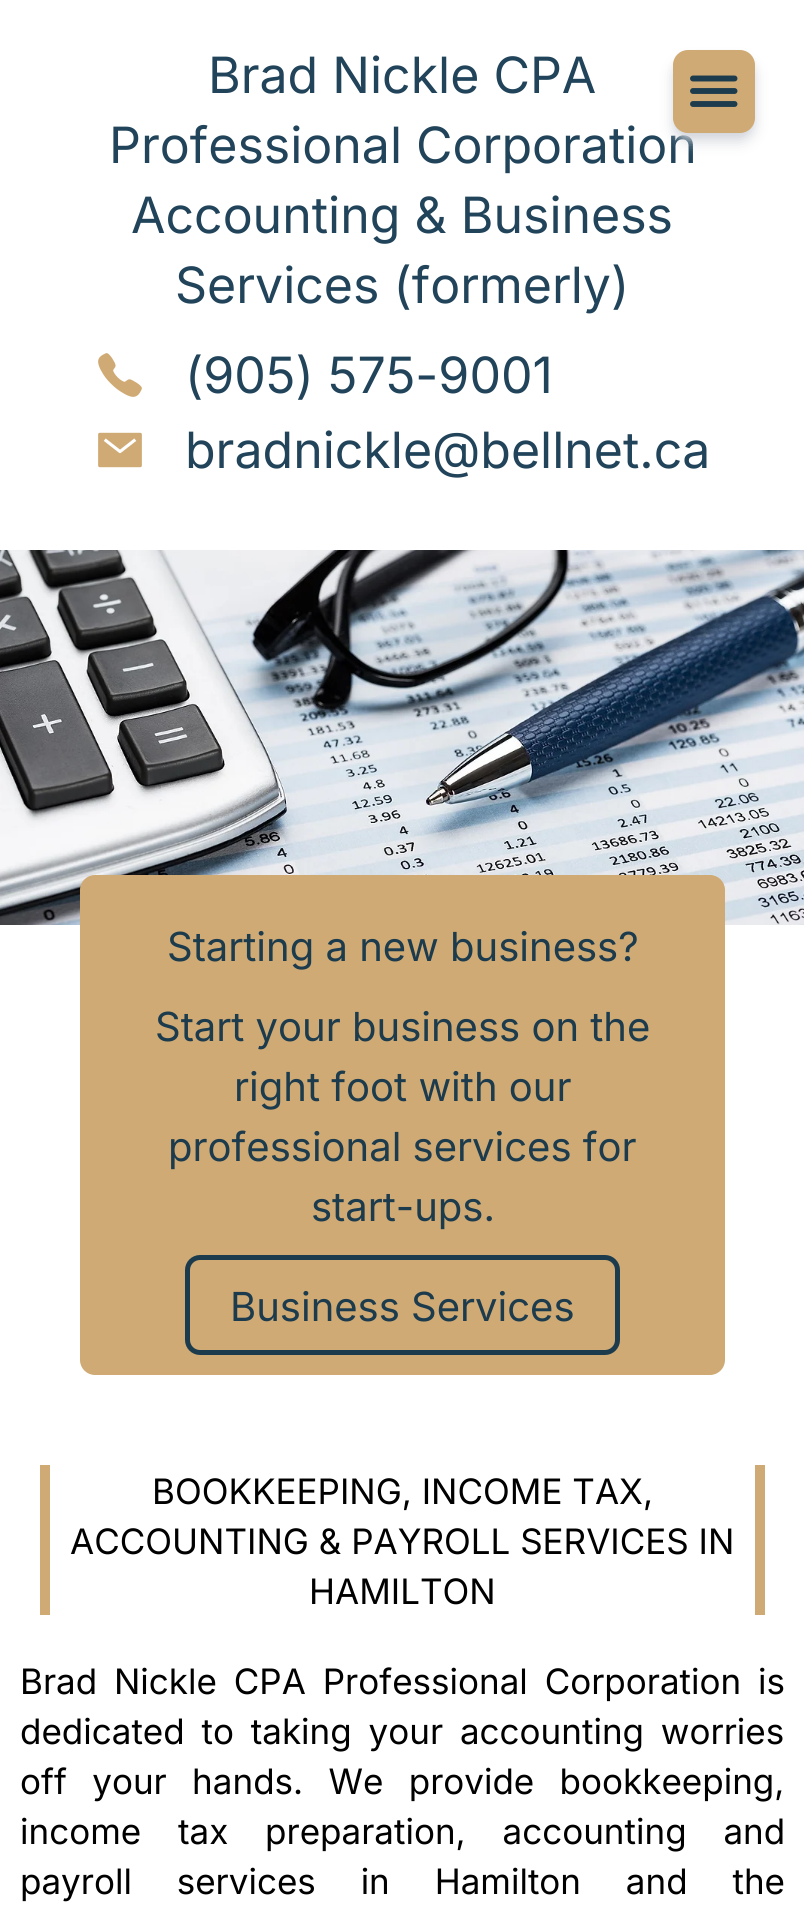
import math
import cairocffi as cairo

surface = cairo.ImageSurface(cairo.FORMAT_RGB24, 804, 1916)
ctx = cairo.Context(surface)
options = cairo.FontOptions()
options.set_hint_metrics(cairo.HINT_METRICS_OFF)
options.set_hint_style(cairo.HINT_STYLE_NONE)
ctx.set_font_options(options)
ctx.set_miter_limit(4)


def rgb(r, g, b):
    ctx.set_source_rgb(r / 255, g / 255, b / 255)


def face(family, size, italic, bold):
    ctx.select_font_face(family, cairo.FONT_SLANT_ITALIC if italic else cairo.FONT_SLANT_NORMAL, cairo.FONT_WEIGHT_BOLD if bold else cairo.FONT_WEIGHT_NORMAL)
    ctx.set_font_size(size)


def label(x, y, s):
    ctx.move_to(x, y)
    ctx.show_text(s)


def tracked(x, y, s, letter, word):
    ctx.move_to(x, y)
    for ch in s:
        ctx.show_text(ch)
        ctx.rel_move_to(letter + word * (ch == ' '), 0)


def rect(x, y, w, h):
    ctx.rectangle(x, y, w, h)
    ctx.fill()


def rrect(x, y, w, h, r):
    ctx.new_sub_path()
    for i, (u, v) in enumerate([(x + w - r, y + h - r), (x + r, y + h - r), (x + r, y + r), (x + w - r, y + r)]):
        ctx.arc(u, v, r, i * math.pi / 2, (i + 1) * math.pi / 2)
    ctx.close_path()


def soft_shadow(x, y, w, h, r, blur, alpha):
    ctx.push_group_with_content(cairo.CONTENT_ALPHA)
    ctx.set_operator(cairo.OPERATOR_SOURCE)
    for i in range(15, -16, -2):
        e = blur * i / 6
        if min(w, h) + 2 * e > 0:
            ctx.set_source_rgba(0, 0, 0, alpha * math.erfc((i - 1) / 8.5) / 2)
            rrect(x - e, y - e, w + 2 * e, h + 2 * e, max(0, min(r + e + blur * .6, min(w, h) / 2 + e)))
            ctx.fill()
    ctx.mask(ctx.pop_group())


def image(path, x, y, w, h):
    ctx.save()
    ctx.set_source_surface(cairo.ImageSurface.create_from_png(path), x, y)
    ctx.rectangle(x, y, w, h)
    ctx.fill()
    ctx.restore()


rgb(255, 255, 255)
ctx.paint()
face('Inter', 50, 0, 0)
rgb(33, 68, 91)
label(208, 93, 'Brad Nickle CPA')
label(109, 163, 'Professional Corporation')
label(131, 233, 'Accounting & Business')
label(175, 303, 'Services (formerly)')
rgb(209, 213, 219)
soft_shadow(678, 60, 72, 73, 10, 5, 1)
soft_shadow(675, 63, 78, 77, 13, 7.5, 1)
rgb(207, 170, 116)
rrect(673, 50, 82, 83, 15)
ctx.fill()
ctx.new_path()
ctx.move_to(693, 78.5)
ctx.line_to(734.5, 78.5)
ctx.move_to(693, 91)
ctx.line_to(734.5, 91)
ctx.move_to(693, 104)
ctx.line_to(734.5, 104)
rgb(28, 59, 77)
ctx.set_line_width(5.9)
ctx.set_line_cap(cairo.LINE_CAP_ROUND)
ctx.stroke()
image('image0.png', 98, 353, 44, 44)
rgb(33, 68, 91)
label(185, 393, '(905) 575-9001')
image('image1.png', 98, 432, 44, 36)
label(185, 468, 'bradnickle@bellnet.ca')
image('image2.png', 0, 550, 804, 375)
rgb(207, 170, 116)
rrect(80, 875, 645, 500, 15)
ctx.fill()
face('Inter', 40, 0, 0)
rgb(28, 59, 77)
label(167, 961, 'Starting a new business?')
label(155, 1041, 'Start your business on the')
label(234, 1101, 'right foot with our')
label(168, 1161, 'professional services for')
label(311, 1221, 'start-ups.')
rrect(187.5, 1257.5, 430, 95, 12.5)
ctx.set_line_width(5)
ctx.set_line_cap(cairo.LINE_CAP_BUTT)
ctx.stroke()
label(230, 1321, 'Business Services')
rgb(207, 170, 116)
rect(755, 1465, 10, 150)
rect(40, 1465, 10, 150)
face('Inter', 35, 0, 0)
rgb(0, 0, 0)
label(152, 1504, 'BOOKKEEPING, INCOME TAX,')
label(70, 1554, 'ACCOUNTING & PAYROLL SERVICES IN')
label(309, 1604, 'HAMILTON')
tracked(20, 1694, 'Brad Nickle CPA Professional Corporation is', 0, 7)
tracked(20, 1744, 'dedicated to taking your accounting worries', 0, 7)
tracked(20, 1794, 'off your hands. We provide bookkeeping,', 0, 15.5)
tracked(20, 1844, 'income tax preparation, accounting and', 0, 27)
tracked(20, 1894, 'payroll services in Hamilton and the', 0, 35)
surface.write_to_png('render.png')
